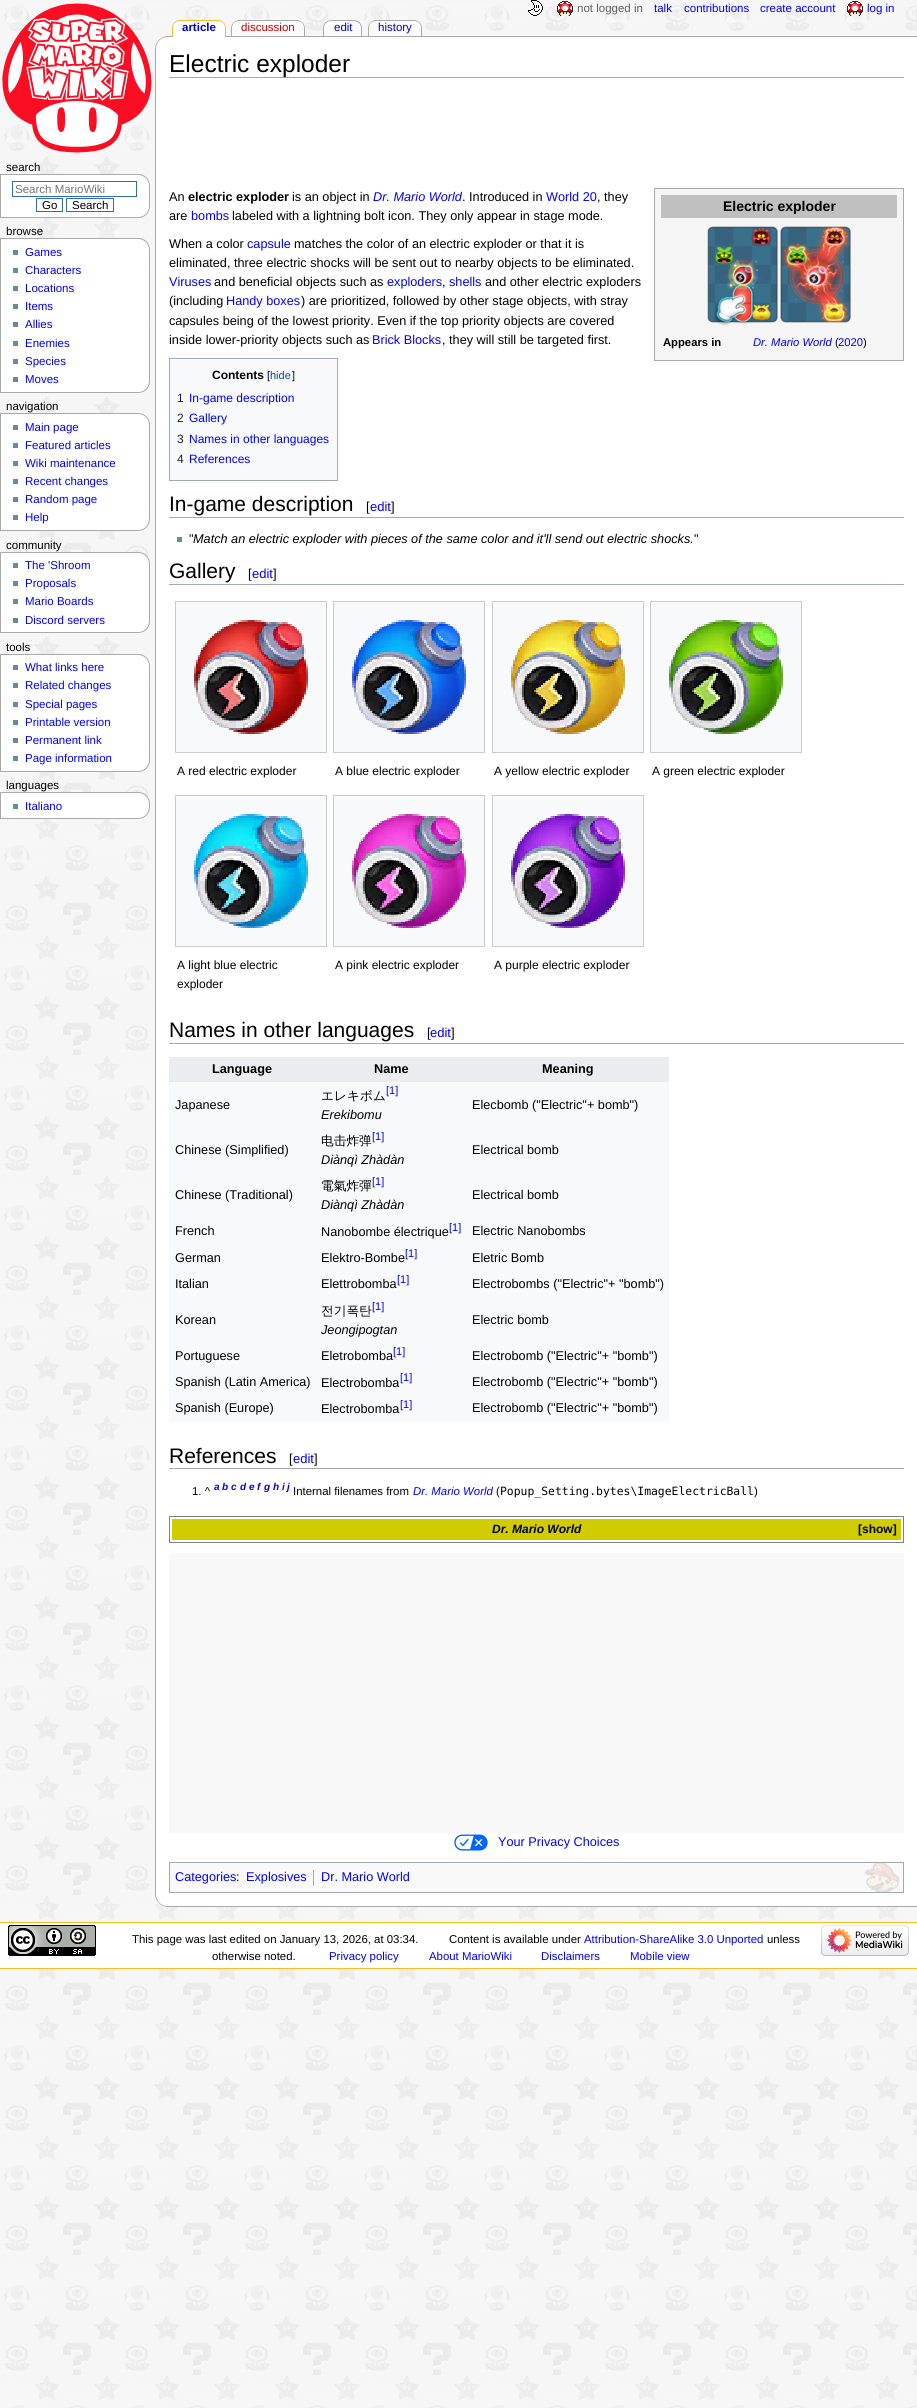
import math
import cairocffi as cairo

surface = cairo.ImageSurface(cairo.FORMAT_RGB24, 917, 2408)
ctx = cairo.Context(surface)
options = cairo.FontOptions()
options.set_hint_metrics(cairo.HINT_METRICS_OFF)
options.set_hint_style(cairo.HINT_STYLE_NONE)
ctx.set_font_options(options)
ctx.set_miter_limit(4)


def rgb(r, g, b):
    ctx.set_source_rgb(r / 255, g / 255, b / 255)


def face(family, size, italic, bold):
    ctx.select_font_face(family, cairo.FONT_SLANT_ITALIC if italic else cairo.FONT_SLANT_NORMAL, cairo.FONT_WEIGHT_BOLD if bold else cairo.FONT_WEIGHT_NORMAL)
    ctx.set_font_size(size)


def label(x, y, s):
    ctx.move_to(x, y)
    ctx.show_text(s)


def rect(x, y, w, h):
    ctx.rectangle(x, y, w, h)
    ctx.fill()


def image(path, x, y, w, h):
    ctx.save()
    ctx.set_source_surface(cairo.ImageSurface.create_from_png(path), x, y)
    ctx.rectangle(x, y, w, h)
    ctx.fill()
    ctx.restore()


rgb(246, 246, 246)
ctx.paint()
image('image0.png', 4, 5, 913, 2403)
image('image1.png', 2, 3, 150, 150)
image('image2.png', 528, 0, 15, 16)
image('image3.png', 557, 1, 16, 15)
face('Liberation Sans', 11.5, 0, 0)
rgb(96, 96, 96)
label(577, 12, 'not logged in')
rgb(0, 0, 255)
label(654, 12, 'talk')
label(684, 12, 'contributions')
label(760, 12, 'create account')
image('image4.png', 847, 1, 16, 15)
label(867, 12, 'log in')
rgb(255, 255, 255)
ctx.new_path()
ctx.move_to(180, 20)
ctx.line_to(218, 20)
ctx.curve_to(222.5, 20, 226, 23.5, 226, 28)
ctx.line_to(226, 45)
ctx.line_to(172, 45)
ctx.line_to(172, 28)
ctx.curve_to(172, 23.5, 175.5, 20, 180, 20)
ctx.close_path()
ctx.fill()
rgb(250, 189, 35)
ctx.set_fill_rule(cairo.FILL_RULE_EVEN_ODD)
ctx.new_path()
ctx.move_to(180, 20)
ctx.line_to(218, 20)
ctx.curve_to(222, 20, 226, 24, 226, 28)
ctx.line_to(226, 45)
ctx.line_to(172, 45)
ctx.line_to(172, 28)
ctx.curve_to(172, 24, 176, 20, 180, 20)
ctx.close_path()
ctx.move_to(180, 21)
ctx.line_to(218, 21)
ctx.curve_to(222, 21, 225, 24, 225, 28)
ctx.line_to(225, 45)
ctx.line_to(173, 45)
ctx.line_to(173, 28)
ctx.curve_to(173, 24, 176, 21, 180, 21)
ctx.close_path()
ctx.fill()
rgb(255, 255, 255)
ctx.new_path()
ctx.move_to(239, 20)
ctx.line_to(297, 20)
ctx.curve_to(301.5, 20, 305, 23.5, 305, 28)
ctx.line_to(305, 45)
ctx.line_to(231, 45)
ctx.line_to(231, 28)
ctx.curve_to(231, 23.5, 234.5, 20, 239, 20)
ctx.close_path()
ctx.fill()
rgb(170, 170, 170)
ctx.new_path()
ctx.move_to(239, 20)
ctx.line_to(297, 20)
ctx.curve_to(301, 20, 305, 24, 305, 28)
ctx.line_to(305, 45)
ctx.line_to(231, 45)
ctx.line_to(231, 28)
ctx.curve_to(231, 24, 235, 20, 239, 20)
ctx.close_path()
ctx.move_to(239, 21)
ctx.line_to(297, 21)
ctx.curve_to(301, 21, 304, 24, 304, 28)
ctx.line_to(304, 45)
ctx.line_to(232, 45)
ctx.line_to(232, 28)
ctx.curve_to(232, 24, 235, 21, 239, 21)
ctx.close_path()
ctx.fill()
rgb(251, 251, 251)
ctx.new_path()
ctx.move_to(243, 21)
ctx.line_to(293, 21)
ctx.curve_to(299, 21, 304, 26, 304, 32)
ctx.line_to(304, 37)
ctx.line_to(232, 37)
ctx.line_to(232, 32)
ctx.curve_to(232, 26, 237, 21, 243, 21)
ctx.close_path()
ctx.fill()
rgb(255, 255, 255)
ctx.new_path()
ctx.move_to(331, 20)
ctx.line_to(354, 20)
ctx.curve_to(358.5, 20, 362, 23.5, 362, 28)
ctx.line_to(362, 45)
ctx.line_to(323, 45)
ctx.line_to(323, 28)
ctx.curve_to(323, 23.5, 326.5, 20, 331, 20)
ctx.close_path()
ctx.fill()
rgb(170, 170, 170)
ctx.new_path()
ctx.move_to(331.5, 20)
ctx.line_to(353.5, 20)
ctx.curve_to(358.5, 20, 362, 23.5, 362, 28.5)
ctx.line_to(362, 45)
ctx.line_to(323, 45)
ctx.line_to(323, 28.5)
ctx.curve_to(323, 23.5, 326.5, 20, 331.5, 20)
ctx.close_path()
ctx.move_to(331.5, 21)
ctx.line_to(353.5, 21)
ctx.curve_to(358, 21, 361, 24, 361, 28.5)
ctx.line_to(361, 45)
ctx.line_to(324, 45)
ctx.line_to(324, 28.5)
ctx.curve_to(324, 24, 327, 21, 331.5, 21)
ctx.close_path()
ctx.fill()
rgb(251, 251, 251)
ctx.new_path()
ctx.move_to(335, 21)
ctx.line_to(350, 21)
ctx.curve_to(356, 21, 361, 26, 361, 32)
ctx.line_to(361, 37)
ctx.line_to(324, 37)
ctx.line_to(324, 32)
ctx.curve_to(324, 26, 329, 21, 335, 21)
ctx.close_path()
ctx.fill()
rgb(255, 255, 255)
ctx.new_path()
ctx.move_to(376, 20)
ctx.line_to(414, 20)
ctx.curve_to(418.5, 20, 422, 23.5, 422, 28)
ctx.line_to(422, 45)
ctx.line_to(368, 45)
ctx.line_to(368, 28)
ctx.curve_to(368, 23.5, 371.5, 20, 376, 20)
ctx.close_path()
ctx.fill()
rgb(170, 170, 170)
ctx.new_path()
ctx.move_to(376, 20)
ctx.line_to(414, 20)
ctx.curve_to(418, 20, 422, 24, 422, 28)
ctx.line_to(422, 45)
ctx.line_to(368, 45)
ctx.line_to(368, 28)
ctx.curve_to(368, 24, 372, 20, 376, 20)
ctx.close_path()
ctx.move_to(376, 21)
ctx.line_to(414, 21)
ctx.curve_to(418, 21, 421, 24, 421, 28)
ctx.line_to(421, 45)
ctx.line_to(369, 45)
ctx.line_to(369, 28)
ctx.curve_to(369, 24, 372, 21, 376, 21)
ctx.close_path()
ctx.fill()
rgb(251, 251, 251)
ctx.new_path()
ctx.move_to(380, 21)
ctx.line_to(410, 21)
ctx.curve_to(416, 21, 421, 26, 421, 32)
ctx.line_to(421, 37)
ctx.line_to(369, 37)
ctx.line_to(369, 32)
ctx.curve_to(369, 26, 374, 21, 380, 21)
ctx.close_path()
ctx.fill()
rgb(255, 255, 255)
ctx.new_path()
ctx.move_to(168, 36)
ctx.line_to(917, 36)
ctx.line_to(917, 1907)
ctx.line_to(168, 1907)
ctx.curve_to(161, 1907, 155, 1901, 155, 1894)
ctx.line_to(155, 49)
ctx.curve_to(155, 42, 161, 36, 168, 36)
ctx.close_path()
ctx.fill()
rgb(170, 170, 170)
ctx.new_path()
ctx.move_to(168, 36)
ctx.line_to(917, 36)
ctx.line_to(917, 1907)
ctx.line_to(168, 1907)
ctx.curve_to(161, 1907, 155, 1901, 155, 1894)
ctx.line_to(155, 49)
ctx.curve_to(155, 42, 161, 36, 168, 36)
ctx.close_path()
ctx.move_to(168, 37)
ctx.line_to(917, 37)
ctx.line_to(917, 1906)
ctx.line_to(168, 1906)
ctx.curve_to(161, 1906, 156, 1901, 156, 1894)
ctx.line_to(156, 49)
ctx.curve_to(156, 42, 161, 37, 168, 37)
ctx.close_path()
ctx.fill()
rgb(255, 255, 255)
ctx.new_path()
ctx.move_to(184, 21)
ctx.line_to(214, 21)
ctx.curve_to(220, 21, 225, 26, 225, 32)
ctx.line_to(225, 37)
ctx.line_to(173, 37)
ctx.line_to(173, 32)
ctx.curve_to(173, 26, 178, 21, 184, 21)
ctx.close_path()
ctx.fill()
face('Liberation Sans', 11.5, 0, 1)
rgb(0, 0, 204)
label(182, 31, 'article')
face('Liberation Sans', 11.5, 0, 0)
rgb(204, 0, 0)
label(241, 31, 'discussion')
rgb(0, 0, 204)
label(334, 31, 'edit')
label(378, 31, 'history')
rgb(0, 0, 0)
label(6, 171, 'search')
rgb(255, 255, 255)
ctx.new_path()
ctx.move_to(0.5, 174.5)
ctx.line_to(138, 174.5)
ctx.curve_to(144.5, 174.5, 149.5, 179.5, 149.5, 186)
ctx.line_to(149.5, 206)
ctx.curve_to(149.5, 212.5, 144.5, 217.5, 138, 217.5)
ctx.line_to(0.5, 217.5)
ctx.close_path()
ctx.fill_preserve()
rgb(170, 170, 170)
ctx.set_line_width(1)
ctx.stroke()
ctx.rectangle(12.5, 181.5, 124, 15)
rgb(47, 111, 171)
ctx.stroke()
rgb(117, 117, 117)
label(15, 193, 'Search MarioWiki')
ctx.rectangle(36.5, 198.5, 26, 13)
rgb(47, 111, 171)
ctx.stroke()
rgb(0, 0, 0)
label(42, 209, 'Go')
ctx.rectangle(66.5, 198.5, 47, 13)
rgb(47, 111, 171)
ctx.stroke()
rgb(0, 0, 0)
label(72, 209, 'Search')
label(6, 235, 'browse')
rgb(255, 255, 255)
ctx.new_path()
ctx.move_to(0.5, 238.5)
ctx.line_to(138, 238.5)
ctx.curve_to(144.5, 238.5, 149.5, 243.5, 149.5, 250)
ctx.line_to(149.5, 381)
ctx.curve_to(149.5, 387.5, 144.5, 392.5, 138, 392.5)
ctx.line_to(0.5, 392.5)
ctx.close_path()
ctx.fill_preserve()
rgb(170, 170, 170)
ctx.stroke()
rgb(99, 140, 156)
rect(13, 250, 5, 5)
rgb(0, 0, 255)
label(25, 256, 'Games')
rgb(99, 140, 156)
rect(13, 268, 5, 5)
rgb(0, 0, 255)
label(25, 274, 'Characters')
rgb(99, 140, 156)
rect(13, 286, 5, 5)
rgb(0, 0, 255)
label(25, 292, 'Locations')
rgb(99, 140, 156)
rect(13, 304, 5, 5)
rgb(0, 0, 255)
label(25, 310, 'Items')
rgb(99, 140, 156)
rect(13, 322, 5, 5)
rgb(0, 0, 255)
label(25, 328, 'Allies')
rgb(99, 140, 156)
rect(13, 341, 5, 5)
rgb(0, 0, 255)
label(25, 347, 'Enemies')
rgb(99, 140, 156)
rect(13, 359, 5, 5)
rgb(0, 0, 255)
label(25, 365, 'Species')
rgb(99, 140, 156)
rect(13, 377, 5, 5)
rgb(0, 0, 255)
label(25, 383, 'Moves')
rgb(0, 0, 0)
label(6, 410, 'navigation')
rgb(255, 255, 255)
ctx.new_path()
ctx.move_to(0.5, 413.5)
ctx.line_to(138, 413.5)
ctx.curve_to(144.5, 413.5, 149.5, 418.5, 149.5, 425)
ctx.line_to(149.5, 519)
ctx.curve_to(149.5, 525.5, 144.5, 530.5, 138, 530.5)
ctx.line_to(0.5, 530.5)
ctx.close_path()
ctx.fill_preserve()
rgb(170, 170, 170)
ctx.stroke()
rgb(99, 140, 156)
rect(13, 425, 5, 5)
rgb(0, 0, 255)
label(25, 431, 'Main page')
rgb(99, 140, 156)
rect(13, 443, 5, 5)
rgb(0, 0, 255)
label(25, 449, 'Featured articles')
rgb(99, 140, 156)
rect(13, 461, 5, 5)
rgb(0, 0, 255)
label(25, 467, 'Wiki maintenance')
rgb(99, 140, 156)
rect(13, 479, 5, 5)
rgb(0, 0, 255)
label(25, 485, 'Recent changes')
rgb(99, 140, 156)
rect(13, 497, 5, 5)
rgb(0, 0, 255)
label(25, 503, 'Random page')
rgb(99, 140, 156)
rect(13, 515, 5, 5)
rgb(0, 0, 255)
label(25, 521, 'Help')
rgb(0, 0, 0)
label(6, 549, 'community')
rgb(255, 255, 255)
ctx.new_path()
ctx.move_to(0.5, 552.5)
ctx.line_to(138, 552.5)
ctx.curve_to(144.5, 552.5, 149.5, 557.5, 149.5, 564)
ctx.line_to(149.5, 621)
ctx.curve_to(149.5, 627.5, 144.5, 632.5, 138, 632.5)
ctx.line_to(0.5, 632.5)
ctx.close_path()
ctx.fill_preserve()
rgb(170, 170, 170)
ctx.stroke()
rgb(99, 140, 156)
rect(13, 563, 5, 5)
rgb(0, 0, 255)
label(25, 569, 'The \'Shroom')
rgb(99, 140, 156)
rect(13, 581, 5, 5)
rgb(0, 0, 255)
label(25, 587, 'Proposals')
rgb(99, 140, 156)
rect(13, 599, 5, 5)
rgb(0, 0, 255)
label(25, 605, 'Mario Boards')
rgb(99, 140, 156)
rect(13, 618, 5, 5)
rgb(0, 0, 255)
label(25, 624, 'Discord servers')
rgb(0, 0, 0)
label(6, 651, 'tools')
rgb(255, 255, 255)
ctx.new_path()
ctx.move_to(0.5, 654.5)
ctx.line_to(138, 654.5)
ctx.curve_to(144.5, 654.5, 149.5, 659.5, 149.5, 666)
ctx.line_to(149.5, 760)
ctx.curve_to(149.5, 766.5, 144.5, 771.5, 138, 771.5)
ctx.line_to(0.5, 771.5)
ctx.close_path()
ctx.fill_preserve()
rgb(170, 170, 170)
ctx.stroke()
rgb(99, 140, 156)
rect(13, 665, 5, 5)
rgb(0, 0, 255)
label(25, 671, 'What links here')
rgb(99, 140, 156)
rect(13, 683, 5, 5)
rgb(0, 0, 255)
label(25, 689, 'Related changes')
rgb(99, 140, 156)
rect(13, 702, 5, 5)
rgb(0, 0, 255)
label(25, 708, 'Special pages')
rgb(99, 140, 156)
rect(13, 720, 5, 5)
rgb(0, 0, 255)
label(25, 726, 'Printable version')
rgb(99, 140, 156)
rect(13, 738, 5, 5)
rgb(0, 0, 255)
label(25, 744, 'Permanent link')
rgb(99, 140, 156)
rect(13, 756, 5, 5)
rgb(0, 0, 255)
label(25, 762, 'Page information')
rgb(0, 0, 0)
label(6, 789, 'languages')
rgb(255, 255, 255)
ctx.new_path()
ctx.move_to(0.5, 792.5)
ctx.line_to(138, 792.5)
ctx.curve_to(144.5, 792.5, 149.5, 797.5, 149.5, 804)
ctx.line_to(149.5, 807)
ctx.curve_to(149.5, 813.5, 144.5, 818.5, 138, 818.5)
ctx.line_to(0.5, 818.5)
ctx.close_path()
ctx.fill_preserve()
rgb(170, 170, 170)
ctx.stroke()
rgb(99, 140, 156)
rect(13, 804, 5, 5)
rgb(0, 0, 255)
label(25, 810, 'Italiano')
rgb(162, 169, 177)
rect(169, 77, 735, 1)
face('Liberation Sans', 24.5, 0, 0)
rgb(0, 0, 0)
label(169, 72, 'Electric exploder')
face('Liberation Sans', 12.7, 0, 0)
label(169, 201, 'An')
face('Liberation Sans', 12.7, 0, 1)
label(188, 201, 'electric exploder')
face('Liberation Sans', 12.7, 0, 0)
label(292, 201, 'is an object in')
face('Liberation Sans', 12.7, 1, 0)
rgb(0, 0, 255)
label(373, 201, 'Dr. Mario World')
face('Liberation Sans', 12.7, 0, 0)
rgb(0, 0, 0)
label(462, 201, '. Introduced in')
rgb(0, 0, 255)
label(546, 201, 'World 20')
rgb(0, 0, 0)
label(597, 201, ', they')
label(169, 220, 'are')
rgb(0, 0, 255)
label(191, 220, 'bombs')
rgb(0, 0, 0)
label(232, 220, 'labeled with a lightning bolt icon. They only appear in stage mode.')
rgb(245, 245, 245)
ctx.rectangle(654.5, 188.5, 249, 172)
ctx.fill_preserve()
rgb(169, 169, 169)
ctx.stroke()
rgb(192, 192, 192)
rect(661, 195, 236, 23)
face('Liberation Sans', 14, 0, 1)
rgb(0, 0, 0)
label(723, 211, 'Electric exploder')
image('image5.png', 707, 226, 144, 100)
face('Liberation Sans', 11.25, 0, 1)
label(663, 346, 'Appears in')
face('Liberation Sans', 11.25, 1, 0)
rgb(0, 0, 255)
label(753, 346, 'Dr. Mario World')
face('Liberation Sans', 11.25, 0, 0)
rgb(0, 0, 0)
label(835, 346, '(')
rgb(0, 0, 255)
label(838, 346, '2020')
rgb(0, 0, 0)
label(863, 346, ')')
face('Liberation Sans', 12.7, 0, 0)
label(169, 248, 'When a color')
rgb(0, 0, 255)
label(247, 248, 'capsule')
rgb(0, 0, 0)
label(294, 248, 'matches the color of an electric exploder or that it is')
label(169, 267, 'eliminated, three electric shocks will be sent out to nearby objects to be eliminated.')
rgb(0, 0, 255)
label(169, 286, 'Viruses')
rgb(0, 0, 0)
label(214, 286, 'and beneficial objects such as')
rgb(0, 0, 255)
label(387, 286, 'exploders')
rgb(0, 0, 0)
label(442, 286, ',')
rgb(0, 0, 255)
label(449, 286, 'shells')
rgb(0, 0, 0)
label(485, 286, 'and other electric exploders')
label(169, 305, '(including')
rgb(0, 0, 255)
label(226, 305, 'Handy boxes')
rgb(0, 0, 0)
label(301, 305, ') are prioritized, followed by other stage objects, with stray')
label(169, 325, 'capsules being of the lowest priority. Even if the top priority objects are covered')
label(169, 344, 'inside lower-priority objects such as')
rgb(0, 0, 255)
label(372, 344, 'Brick Blocks')
rgb(0, 0, 0)
label(442, 344, ', they will still be targeted first.')
rgb(248, 249, 250)
ctx.rectangle(169.5, 358.5, 168, 122)
ctx.fill_preserve()
rgb(162, 169, 177)
ctx.stroke()
face('Liberation Sans', 12, 0, 1)
rgb(0, 0, 0)
label(212, 379, 'Contents')
face('Liberation Sans', 11, 0, 0)
label(267, 379, '[')
rgb(6, 69, 173)
label(270, 379, 'hide')
rgb(0, 0, 0)
label(292, 379, ']')
face('Liberation Sans', 12, 0, 0)
rgb(32, 33, 34)
label(177, 402, '1')
rgb(0, 0, 255)
label(189, 402, 'In-game description')
rgb(32, 33, 34)
label(177, 422, '2')
rgb(0, 0, 255)
label(189, 422, 'Gallery')
rgb(32, 33, 34)
label(177, 443, '3')
rgb(0, 0, 255)
label(189, 443, 'Names in other languages')
rgb(32, 33, 34)
label(177, 463, '4')
rgb(0, 0, 255)
label(189, 463, 'References')
rgb(162, 169, 177)
rect(169, 517, 735, 1)
face('Liberation Sans', 21, 0, 0)
rgb(0, 0, 0)
label(169, 511, 'In-game description')
face('Liberation Sans', 13, 0, 0)
label(366, 511, '[')
rgb(0, 0, 255)
label(370, 511, 'edit')
rgb(0, 0, 0)
label(391, 511, ']')
rgb(99, 140, 156)
rect(177, 537, 5, 5)
face('Liberation Sans', 12.7, 0, 0)
rgb(0, 0, 0)
label(189, 543, '"')
face('Liberation Sans', 12.7, 1, 0)
label(193, 543, 'Match an electric exploder with pieces of the same color and it\'ll send out electric shocks.')
face('Liberation Sans', 12.7, 0, 0)
label(694, 543, '"')
rgb(162, 169, 177)
rect(169, 584, 735, 1)
face('Liberation Sans', 21, 0, 0)
rgb(0, 0, 0)
label(169, 578, 'Gallery')
face('Liberation Sans', 13, 0, 0)
label(248, 578, '[')
rgb(0, 0, 255)
label(252, 578, 'edit')
rgb(0, 0, 0)
label(273, 578, ']')
rgb(248, 249, 250)
ctx.rectangle(175.5, 601.5, 151, 151)
ctx.fill_preserve()
rgb(200, 204, 209)
ctx.stroke()
image('image6.png', 194, 620, 114, 114)
face('Liberation Sans', 12, 0, 0)
rgb(0, 0, 0)
label(177, 775, 'A red electric exploder')
rgb(248, 249, 250)
ctx.rectangle(333.5, 601.5, 151, 151)
ctx.fill_preserve()
rgb(200, 204, 209)
ctx.stroke()
image('image7.png', 352, 620, 114, 114)
rgb(0, 0, 0)
label(335, 775, 'A blue electric exploder')
rgb(248, 249, 250)
ctx.rectangle(492.5, 601.5, 151, 151)
ctx.fill_preserve()
rgb(200, 204, 209)
ctx.stroke()
image('image8.png', 511, 620, 114, 114)
rgb(0, 0, 0)
label(494, 775, 'A yellow electric exploder')
rgb(248, 249, 250)
ctx.rectangle(650.5, 601.5, 151, 151)
ctx.fill_preserve()
rgb(200, 204, 209)
ctx.stroke()
image('image9.png', 669, 620, 114, 114)
rgb(0, 0, 0)
label(652, 775, 'A green electric exploder')
rgb(248, 249, 250)
ctx.rectangle(175.5, 795.5, 151, 151)
ctx.fill_preserve()
rgb(200, 204, 209)
ctx.stroke()
image('image10.png', 194, 814, 114, 114)
rgb(0, 0, 0)
label(177, 969, 'A light blue electric')
label(177, 988, 'exploder')
rgb(248, 249, 250)
ctx.rectangle(333.5, 795.5, 151, 151)
ctx.fill_preserve()
rgb(200, 204, 209)
ctx.stroke()
image('image11.png', 352, 814, 114, 114)
rgb(0, 0, 0)
label(335, 969, 'A pink electric exploder')
rgb(248, 249, 250)
ctx.rectangle(492.5, 795.5, 151, 151)
ctx.fill_preserve()
rgb(200, 204, 209)
ctx.stroke()
image('image12.png', 511, 814, 114, 114)
rgb(0, 0, 0)
label(494, 969, 'A purple electric exploder')
rgb(162, 169, 177)
rect(169, 1043, 735, 1)
face('Liberation Sans', 21, 0, 0)
rgb(0, 0, 0)
label(169, 1037, 'Names in other languages')
face('Liberation Sans', 13, 0, 0)
label(427, 1037, '[')
rgb(0, 0, 255)
label(430, 1037, 'edit')
rgb(0, 0, 0)
label(451, 1037, ']')
rgb(234, 236, 240)
rect(169, 1057, 500, 25)
face('Liberation Sans', 12.7, 0, 1)
rgb(0, 0, 0)
label(212, 1073, 'Language')
label(374, 1073, 'Name')
label(542, 1073, 'Meaning')
rgb(248, 249, 250)
rect(169, 1082, 500, 340)
face('Liberation Sans', 12.7, 0, 0)
rgb(0, 0, 0)
label(175, 1109, 'Japanese')
face('WenQuanYi Zen Hei Medium', 12.7, 0, 0)
label(321, 1100, 'エレキボム')
face('Liberation Sans', 11, 0, 0)
rgb(0, 0, 255)
label(386, 1094, '[1]')
face('Liberation Sans', 12.7, 1, 0)
rgb(0, 0, 0)
label(321, 1119, 'Erekibomu')
face('Liberation Sans', 12.7, 0, 0)
label(472, 1109, 'Elecbomb ("Electric"+ bomb")')
label(175, 1154, 'Chinese (Simplified)')
face('WenQuanYi Zen Hei Medium', 12.7, 0, 0)
label(321, 1145, '电击炸弹')
face('Liberation Sans', 11, 0, 0)
rgb(0, 0, 255)
label(372, 1140, '[1]')
face('Liberation Sans', 12.7, 1, 0)
rgb(0, 0, 0)
label(321, 1164, 'Diànqì Zhàdàn')
face('Liberation Sans', 12.7, 0, 0)
label(472, 1154, 'Electrical bomb')
label(175, 1199, 'Chinese (Traditional)')
face('WenQuanYi Zen Hei Medium', 12.7, 0, 0)
label(321, 1190, '電氣炸彈')
face('Liberation Sans', 11, 0, 0)
rgb(0, 0, 255)
label(372, 1185, '[1]')
face('Liberation Sans', 12.7, 1, 0)
rgb(0, 0, 0)
label(321, 1209, 'Diànqì Zhàdàn')
face('Liberation Sans', 12.7, 0, 0)
label(472, 1199, 'Electrical bomb')
label(175, 1235, 'French')
label(321, 1236, 'Nanobombe électrique')
face('Liberation Sans', 11, 0, 0)
rgb(0, 0, 255)
label(449, 1231, '[1]')
face('Liberation Sans', 12.7, 0, 0)
rgb(0, 0, 0)
label(472, 1235, 'Electric Nanobombs')
label(175, 1262, 'German')
label(321, 1262, 'Elektro-Bombe')
face('Liberation Sans', 11, 0, 0)
rgb(0, 0, 255)
label(405, 1257, '[1]')
face('Liberation Sans', 12.7, 0, 0)
rgb(0, 0, 0)
label(472, 1262, 'Eletric Bomb')
label(175, 1288, 'Italian')
label(321, 1288, 'Elettrobomba')
face('Liberation Sans', 11, 0, 0)
rgb(0, 0, 255)
label(397, 1283, '[1]')
face('Liberation Sans', 12.7, 0, 0)
rgb(0, 0, 0)
label(472, 1288, 'Electrobombs ("Electric"+ "bomb")')
label(175, 1324, 'Korean')
face('WenQuanYi Zen Hei Medium', 12.7, 0, 0)
label(321, 1315, '전기폭탄')
face('Liberation Sans', 11, 0, 0)
rgb(0, 0, 255)
label(372, 1310, '[1]')
face('Liberation Sans', 12.7, 1, 0)
rgb(0, 0, 0)
label(321, 1334, 'Jeongipogtan')
face('Liberation Sans', 12.7, 0, 0)
label(472, 1324, 'Electric bomb')
label(175, 1360, 'Portuguese')
label(321, 1360, 'Eletrobomba')
face('Liberation Sans', 11, 0, 0)
rgb(0, 0, 255)
label(393, 1355, '[1]')
face('Liberation Sans', 12.7, 0, 0)
rgb(0, 0, 0)
label(472, 1360, 'Electrobomb ("Electric"+ "bomb")')
label(175, 1386, 'Spanish (Latin America)')
label(321, 1387, 'Electrobomba')
face('Liberation Sans', 11, 0, 0)
rgb(0, 0, 255)
label(400, 1381, '[1]')
face('Liberation Sans', 12.7, 0, 0)
rgb(0, 0, 0)
label(472, 1386, 'Electrobomb ("Electric"+ "bomb")')
label(175, 1412, 'Spanish (Europe)')
label(321, 1413, 'Electrobomba')
face('Liberation Sans', 11, 0, 0)
rgb(0, 0, 255)
label(400, 1408, '[1]')
face('Liberation Sans', 12.7, 0, 0)
rgb(0, 0, 0)
label(472, 1412, 'Electrobomb ("Electric"+ "bomb")')
rgb(162, 169, 177)
rect(169, 1468, 735, 1)
face('Liberation Sans', 21, 0, 0)
rgb(0, 0, 0)
label(169, 1463, 'References')
face('Liberation Sans', 13, 0, 0)
label(289, 1463, '[')
rgb(0, 0, 255)
label(293, 1463, 'edit')
rgb(0, 0, 0)
label(314, 1463, ']')
face('Liberation Sans', 11.4, 0, 0)
label(192, 1495, '1. ^')
face('Liberation Sans', 10, 1, 1)
rgb(0, 0, 255)
label(214, 1490, 'a')
label(222, 1490, 'b')
label(231, 1490, 'c')
label(240, 1490, 'd')
label(249, 1490, 'e')
label(257, 1490, 'f')
label(264, 1490, 'g')
label(273, 1490, 'h')
label(282, 1490, 'i')
label(287, 1490, 'j')
face('Liberation Sans', 11.4, 0, 0)
rgb(0, 0, 0)
label(293, 1495, 'Internal filenames from')
face('Liberation Sans', 11.4, 1, 0)
rgb(0, 0, 255)
label(413, 1495, 'Dr. Mario World')
face('Liberation Sans', 11.4, 0, 0)
rgb(0, 0, 0)
label(496, 1495, '(')
face('DejaVu Sans Mono', 11.4, 0, 0)
label(500, 1495, 'Popup_Setting.bytes\\ImageElectricBall')
face('Liberation Sans', 11.4, 0, 0)
label(754, 1495, ')')
ctx.rectangle(169.5, 1516.5, 734, 26)
rgb(128, 128, 128)
ctx.stroke()
rgb(208, 204, 0)
rect(172, 1519, 729, 21)
face('Liberation Sans', 12, 1, 1)
rgb(0, 0, 0)
label(492, 1533, 'Dr. Mario World')
face('Liberation Sans', 12, 0, 1)
label(858, 1533, '[show]')
rgb(248, 248, 248)
rect(169, 1553, 735, 280)
image('image13.png', 454, 1834, 34, 17)
face('Liberation Sans', 12.7, 0, 0)
rgb(0, 0, 255)
label(498, 1846, 'Your Privacy Choices')
rgb(249, 249, 249)
rect(170, 1863, 733, 29)
image('image14.png', 865, 1863, 35, 29)
ctx.rectangle(169.5, 1862.5, 734, 30)
rgb(162, 169, 177)
ctx.stroke()
rgb(0, 0, 255)
label(175, 1881, 'Categories')
rgb(0, 0, 0)
label(236, 1881, ':')
rgb(0, 0, 255)
label(246, 1881, 'Explosives')
rgb(162, 169, 177)
rect(313, 1870, 1, 16)
rgb(0, 0, 255)
label(321, 1881, 'Dr. Mario World')
rgb(255, 255, 255)
rect(0, 1923, 917, 45)
rgb(250, 189, 35)
rect(0, 1922, 917, 1)
rect(0, 1968, 917, 1)
image('image15.png', 8, 1925, 88, 31)
face('Liberation Sans', 11.4, 0, 0)
rgb(0, 0, 0)
label(132, 1943, 'This page was last edited on January 13, 2026, at 03:34.')
label(449, 1943, 'Content is available under')
rgb(0, 0, 255)
label(584, 1943, 'Attribution-ShareAlike 3.0 Unported')
rgb(0, 0, 0)
label(767, 1943, 'unless')
label(212, 1960, 'otherwise noted.')
rgb(0, 0, 255)
label(329, 1960, 'Privacy policy')
label(429, 1960, 'About MarioWiki')
label(541, 1960, 'Disclaimers')
label(630, 1960, 'Mobile view')
image('image16.png', 821, 1925, 88, 31)
surface.write_to_png('render.png')
